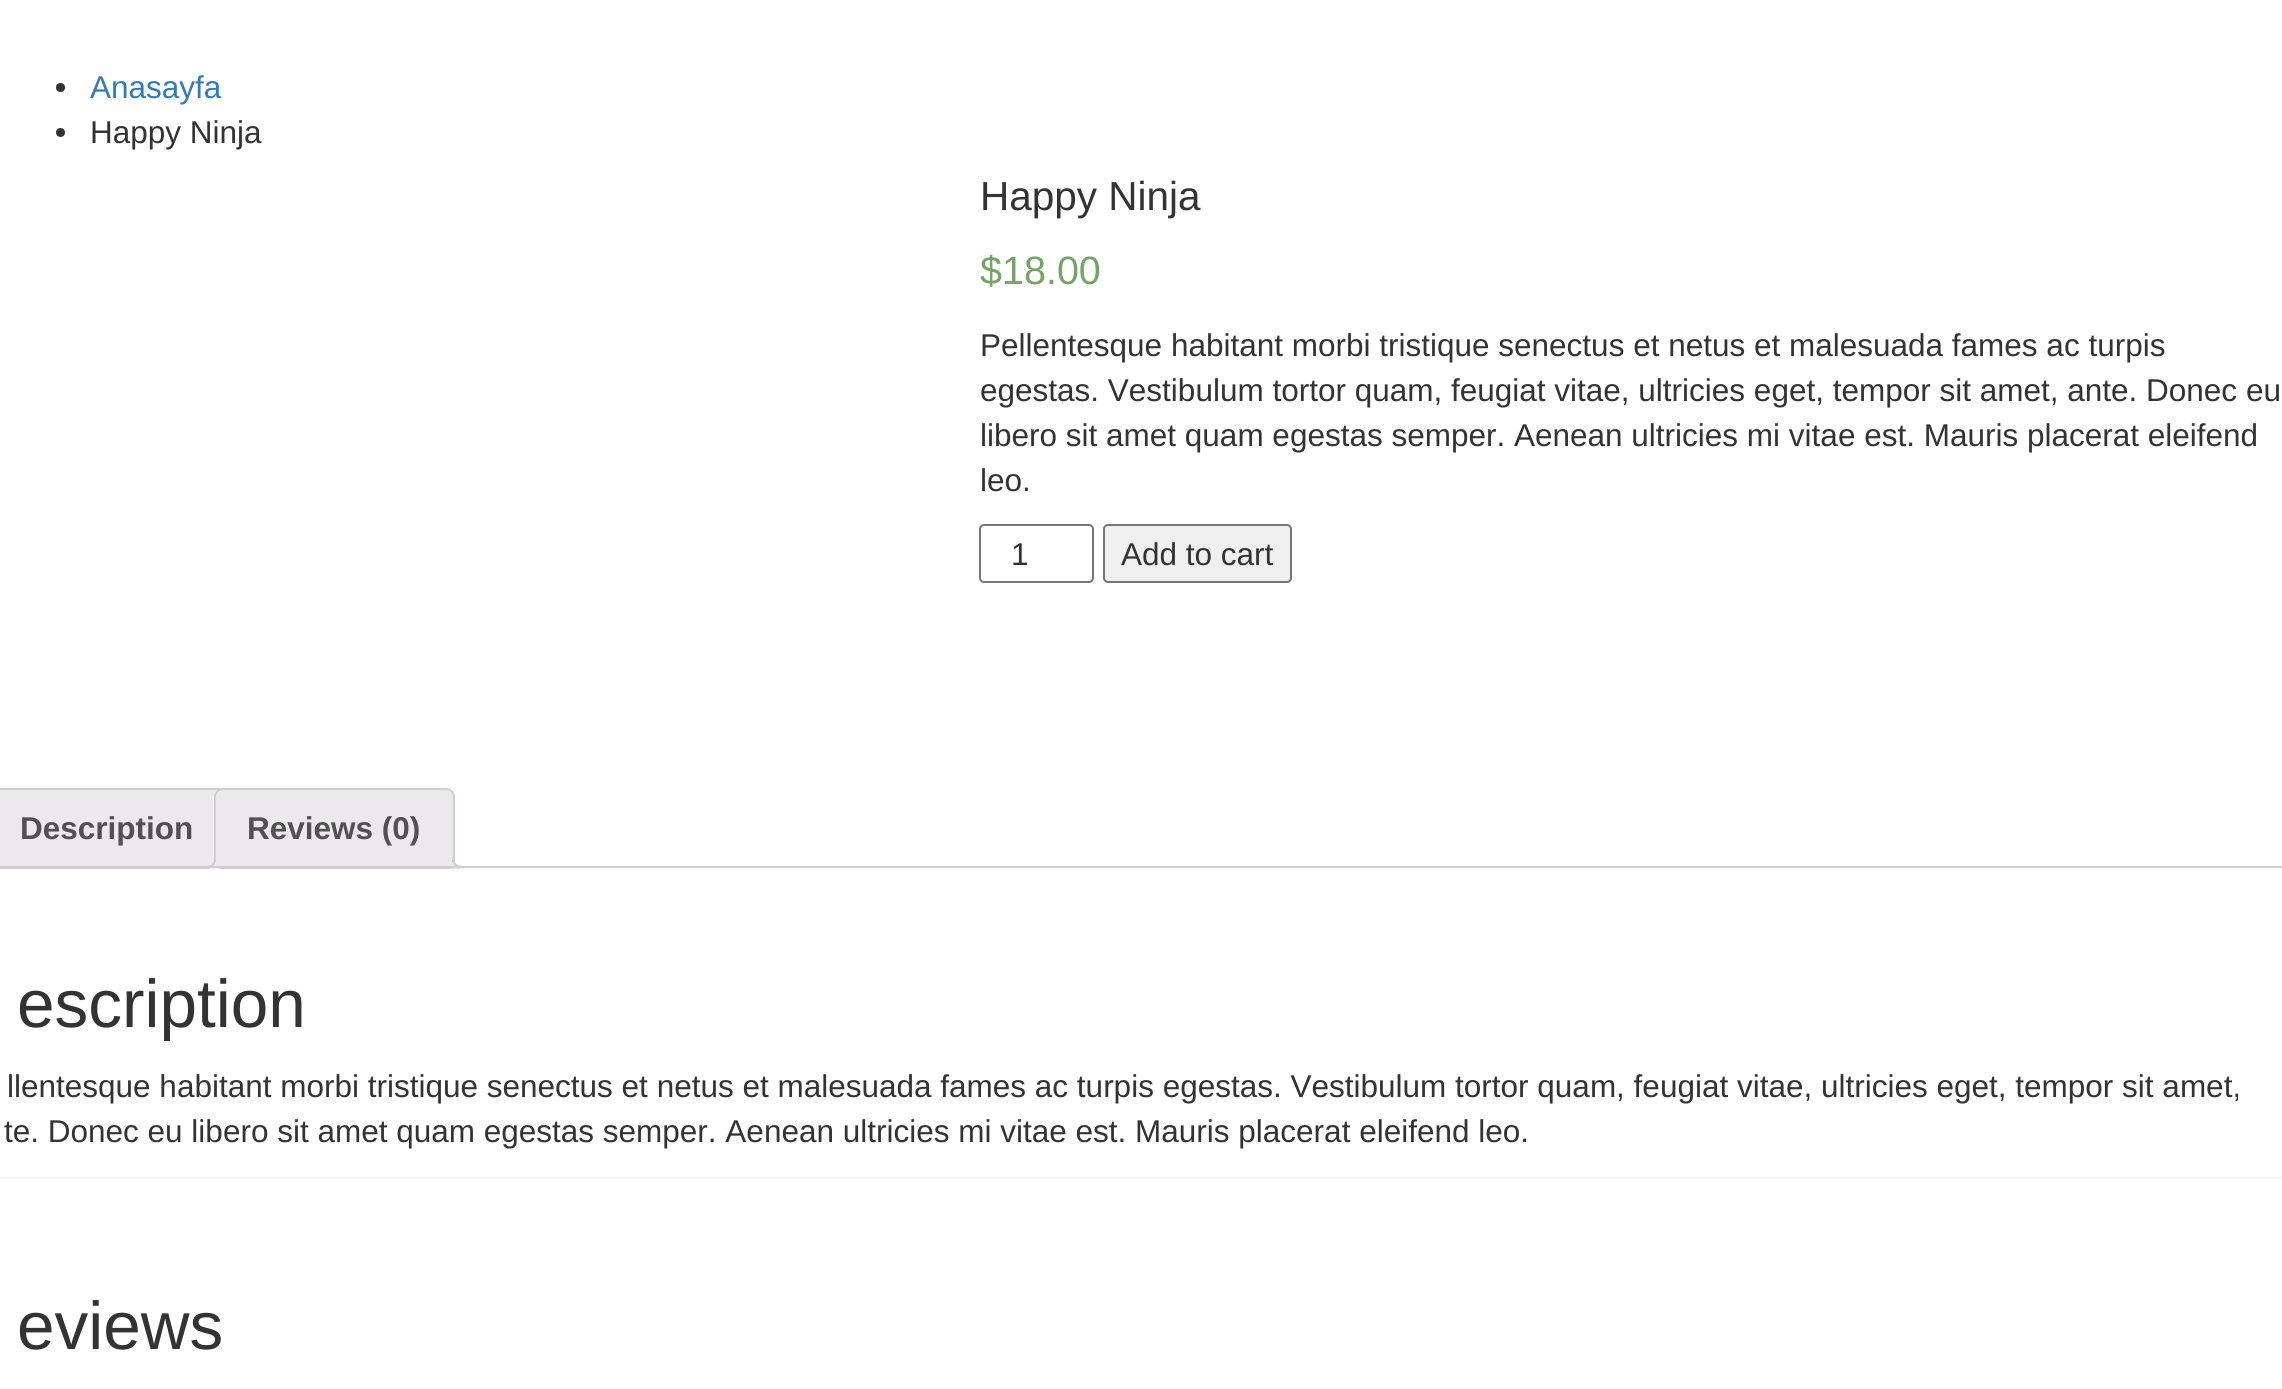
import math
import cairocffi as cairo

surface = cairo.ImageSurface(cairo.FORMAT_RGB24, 2282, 1389)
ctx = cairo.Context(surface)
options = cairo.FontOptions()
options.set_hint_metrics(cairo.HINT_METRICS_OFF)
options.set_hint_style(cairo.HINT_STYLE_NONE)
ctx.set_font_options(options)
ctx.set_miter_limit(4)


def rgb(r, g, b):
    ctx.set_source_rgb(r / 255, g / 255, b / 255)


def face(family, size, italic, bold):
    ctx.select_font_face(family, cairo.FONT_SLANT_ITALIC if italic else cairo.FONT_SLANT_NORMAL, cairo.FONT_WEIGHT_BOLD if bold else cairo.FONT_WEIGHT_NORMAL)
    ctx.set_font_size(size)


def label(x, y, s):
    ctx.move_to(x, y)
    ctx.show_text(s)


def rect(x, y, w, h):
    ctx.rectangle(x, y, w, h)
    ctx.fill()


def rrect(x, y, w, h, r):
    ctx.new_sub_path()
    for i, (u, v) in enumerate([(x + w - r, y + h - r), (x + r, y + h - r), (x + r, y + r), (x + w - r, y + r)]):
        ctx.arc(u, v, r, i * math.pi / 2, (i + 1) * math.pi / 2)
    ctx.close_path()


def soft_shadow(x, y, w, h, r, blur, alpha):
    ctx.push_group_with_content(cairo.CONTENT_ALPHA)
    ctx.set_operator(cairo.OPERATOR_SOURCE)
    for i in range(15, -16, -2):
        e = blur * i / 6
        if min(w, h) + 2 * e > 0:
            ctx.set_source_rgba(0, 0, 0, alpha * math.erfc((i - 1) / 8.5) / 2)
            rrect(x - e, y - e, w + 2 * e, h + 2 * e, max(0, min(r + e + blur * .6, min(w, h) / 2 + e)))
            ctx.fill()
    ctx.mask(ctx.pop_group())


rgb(255, 255, 255)
ctx.paint()
rgb(51, 51, 51)
ctx.arc(60.5, 87.5, 4.5, 0, 2 * math.pi)
ctx.fill()
face('Liberation Sans', 31.5, 0, 0)
rgb(51, 122, 183)
label(90, 98, 'Anasayfa')
rgb(51, 51, 51)
ctx.new_path()
ctx.arc(60.5, 132.5, 4.5, 0, 2 * math.pi)
ctx.fill()
label(90, 143, 'Happy Ninja')
face('Liberation Sans', 40.5, 0, 0)
label(980, 210, 'Happy Ninja')
face('Liberation Sans', 39.5, 0, 0)
rgb(119, 164, 100)
label(980, 284, '$18.00')
face('Liberation Sans', 31.5, 0, 0)
rgb(51, 51, 51)
label(980, 356, 'Pellentesque habitant morbi tristique senectus et netus et malesuada fames ac turpis')
label(980, 401, 'egestas. Vestibulum tortor quam, feugiat vitae, ultricies eget, tempor sit amet, ante. Donec eu')
label(980, 446, 'libero sit amet quam egestas semper. Aenean ultricies mi vitae est. Mauris placerat eleifend')
label(980, 491, 'leo.')
rrect(980, 525, 113, 57, 4)
rgb(118, 118, 118)
ctx.stroke()
rgb(51, 51, 51)
label(1011, 565, '1')
rgb(239, 239, 239)
rrect(1104, 525, 187, 57, 4)
ctx.fill_preserve()
rgb(118, 118, 118)
ctx.stroke()
rgb(51, 51, 51)
label(1121, 565, 'Add to cart')
rgb(235, 233, 235)
ctx.new_path()
ctx.move_to(-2, 789)
ctx.line_to(218, 789)
ctx.curve_to(222.5, 789, 226, 792.5, 226, 797)
ctx.line_to(226, 868)
ctx.line_to(-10, 868)
ctx.line_to(-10, 797)
ctx.curve_to(-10, 792.5, -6.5, 789, -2, 789)
ctx.close_path()
ctx.fill_preserve()
rgb(211, 206, 210)
ctx.stroke()
face('Liberation Sans', 31.5, 0, 1)
rgb(81, 81, 81)
label(20, 839, 'Description')
rgb(235, 233, 235)
ctx.new_path()
ctx.move_to(223, 789)
ctx.line_to(446, 789)
ctx.curve_to(450.5, 789, 454, 792.5, 454, 797)
ctx.line_to(454, 868)
ctx.line_to(215, 868)
ctx.line_to(215, 797)
ctx.curve_to(215, 792.5, 218.5, 789, 223, 789)
ctx.close_path()
ctx.fill_preserve()
rgb(211, 206, 210)
ctx.stroke()
rgb(81, 81, 81)
label(247, 839, 'Reviews (0)')
ctx.save()
ctx.rectangle(0, 788, 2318, 81)
ctx.clip()
rgb(235, 233, 235)
ctx.new_path()
ctx.move_to(209, 868.5)
ctx.line_to(209, 873)
ctx.curve_to(217, 873, 221, 871, 221, 862)
ctx.line_to(215.5, 862)
ctx.curve_to(214.5, 865, 212, 867.5, 209, 868.5)
ctx.close_path()
ctx.fill()
ctx.restore()
rgb(211, 206, 210)
ctx.set_fill_rule(cairo.FILL_RULE_EVEN_ODD)
ctx.new_path()
ctx.move_to(205, 857)
ctx.line_to(216, 857)
ctx.curve_to(216, 865.5, 213, 868.5, 205, 868.5)
ctx.close_path()
ctx.move_to(205, 857)
ctx.line_to(214, 857)
ctx.curve_to(214, 864, 211.5, 866, 205, 866)
ctx.close_path()
ctx.fill()
ctx.save()
ctx.set_fill_rule(cairo.FILL_RULE_WINDING)
ctx.rectangle(0, 788, 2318, 81)
ctx.clip()
rgb(235, 233, 235)
ctx.new_path()
ctx.move_to(448, 862)
ctx.curve_to(448, 869.5, 451.5, 873, 459, 873)
ctx.line_to(459, 868)
ctx.curve_to(456, 867.5, 453.5, 865, 452.5, 862)
ctx.close_path()
ctx.fill()
ctx.restore()
ctx.new_path()
ctx.move_to(452, 857)
ctx.line_to(463.5, 857)
ctx.line_to(463.5, 868.5)
ctx.line_to(461, 868.5)
ctx.curve_to(456.5, 868.5, 452, 864.5, 452, 859.5)
ctx.close_path()
ctx.move_to(454.5, 857)
ctx.line_to(463.5, 857)
ctx.line_to(463.5, 866)
ctx.curve_to(459, 866, 454.5, 865, 454.5, 859.5)
ctx.close_path()
ctx.fill()
rect(0, 866, 2282, 2)
rgb(0, 0, 0)
soft_shadow(-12, 920, 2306, 259, 9, 1, 0.05)
rgb(255, 255, 255)
rect(0, 919, 2282, 258)
face('Liberation Sans', 67.5, 0, 0)
rgb(51, 51, 51)
label(17, 1027, 'escription')
face('Liberation Sans', 31.5, 0, 0)
label(7, 1097, 'llentesque habitant morbi tristique senectus et netus et malesuada fames ac turpis egestas. Vestibulum tortor quam, feugiat vitae, ultricies eget, tempor sit amet,')
label(4, 1142, 'te. Donec eu libero sit amet quam egestas semper. Aenean ultricies mi vitae est. Mauris placerat eleifend leo.')
face('Liberation Sans', 67.5, 0, 0)
label(17, 1349, 'eviews')
surface.write_to_png('render.png')
